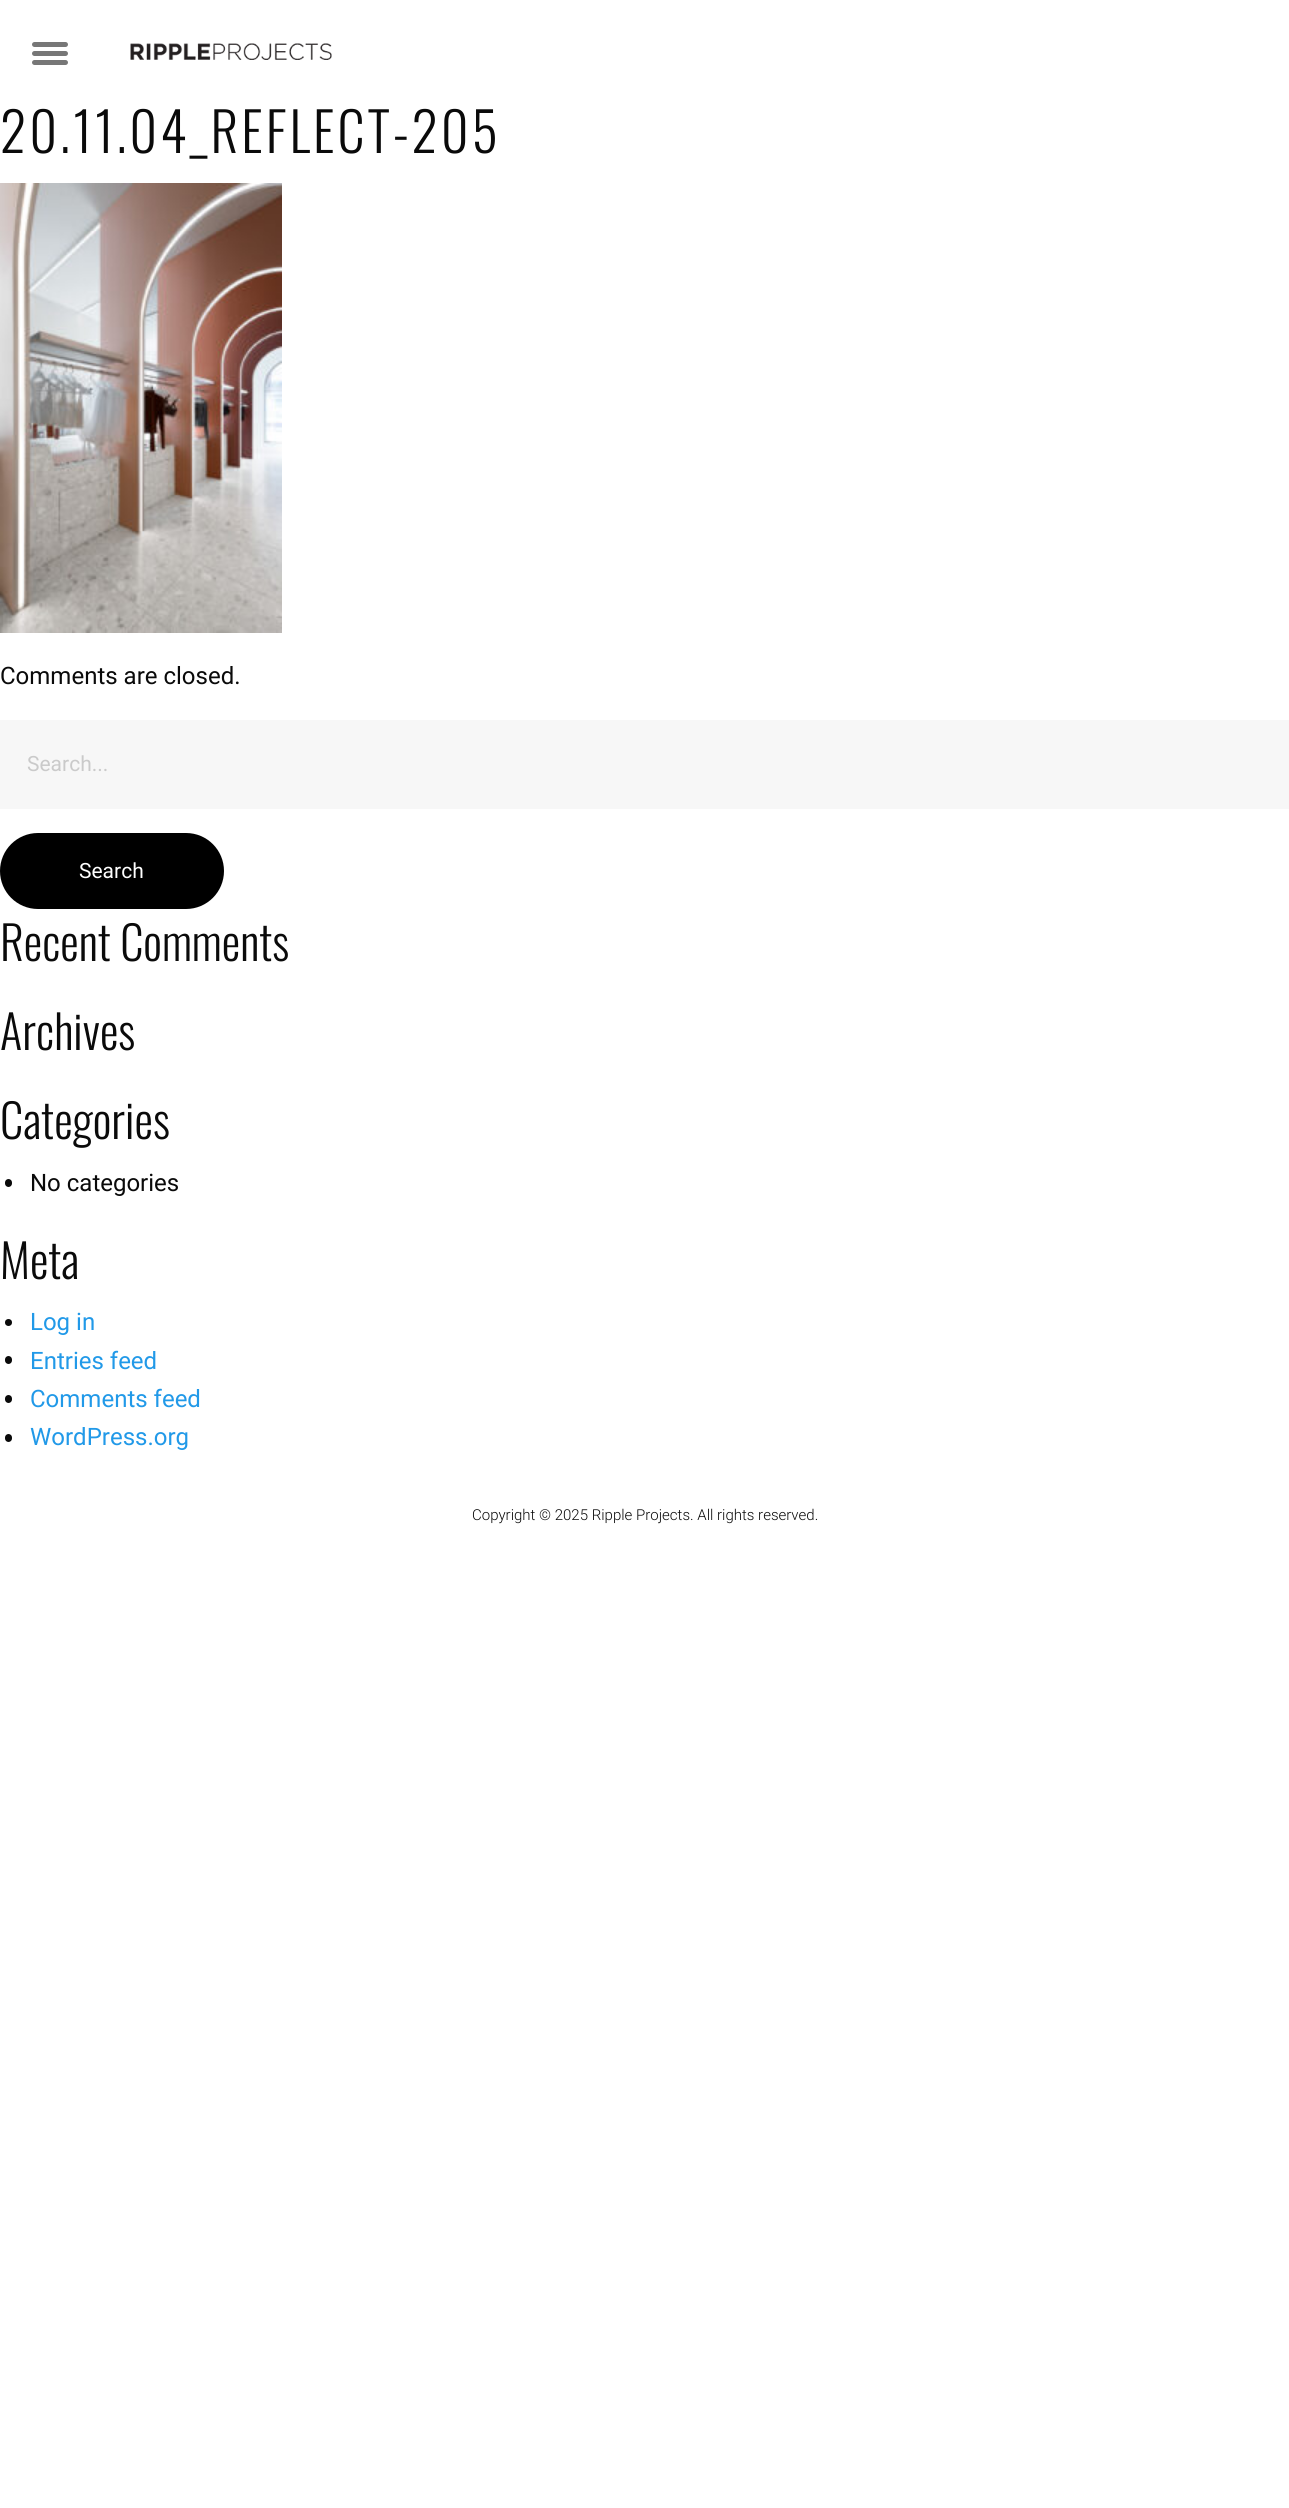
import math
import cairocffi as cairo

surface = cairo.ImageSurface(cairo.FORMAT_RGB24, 1289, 2508)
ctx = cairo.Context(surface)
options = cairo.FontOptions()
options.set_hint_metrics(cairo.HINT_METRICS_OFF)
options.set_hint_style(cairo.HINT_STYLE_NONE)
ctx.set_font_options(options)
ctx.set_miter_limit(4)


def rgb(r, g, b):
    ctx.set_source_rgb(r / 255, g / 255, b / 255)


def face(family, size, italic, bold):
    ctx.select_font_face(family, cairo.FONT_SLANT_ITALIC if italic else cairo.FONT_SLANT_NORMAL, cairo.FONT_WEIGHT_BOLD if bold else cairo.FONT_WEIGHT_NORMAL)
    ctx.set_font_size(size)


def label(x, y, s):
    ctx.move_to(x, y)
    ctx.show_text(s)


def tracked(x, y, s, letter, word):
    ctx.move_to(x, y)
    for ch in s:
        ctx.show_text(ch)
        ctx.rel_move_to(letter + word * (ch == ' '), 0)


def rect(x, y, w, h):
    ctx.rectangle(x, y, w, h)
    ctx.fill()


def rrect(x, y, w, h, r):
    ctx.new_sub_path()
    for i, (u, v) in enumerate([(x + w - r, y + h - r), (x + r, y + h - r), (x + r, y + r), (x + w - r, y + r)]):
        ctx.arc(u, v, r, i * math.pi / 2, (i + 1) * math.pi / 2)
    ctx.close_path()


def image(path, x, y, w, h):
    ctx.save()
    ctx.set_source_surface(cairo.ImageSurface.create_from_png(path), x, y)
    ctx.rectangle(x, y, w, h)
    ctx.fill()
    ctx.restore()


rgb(255, 255, 255)
ctx.paint()
rgb(119, 119, 119)
rrect(32, 42, 36, 5, 2.5)
ctx.fill()
rrect(32, 51, 36, 5, 2.5)
ctx.fill()
rrect(32, 60, 36, 5, 2.5)
ctx.fill()
image('image0.png', 130, 43, 202, 17)
face('Oswald Light', 54, 0, 0)
rgb(10, 10, 10)
tracked(0, 153, '20.11.04_REFLECT-205', 3, 0)
image('image1.png', 0, 183, 282, 450)
face('Roboto', 24, 0, 0)
label(0, 684, 'Comments are closed.')
rgb(247, 247, 247)
rect(0, 720, 1289, 89)
face('Roboto', 21, 0, 0)
rgb(202, 202, 202)
label(27, 771, 'Search...')
rgb(0, 0, 0)
rrect(0, 833, 224, 76, 38)
ctx.fill()
rgb(255, 255, 255)
label(79, 878, 'Search')
face('Oswald Light', 46.5, 0, 0)
rgb(10, 10, 10)
label(0, 961, 'Recent Comments')
label(0, 1050, 'Archives')
label(0, 1139, 'Categories')
rrect(5, 1179, 7, 8, 3.5)
ctx.fill()
face('Roboto', 24, 0, 0)
label(30, 1191, 'No categories')
face('Oswald Light', 46.5, 0, 0)
label(0, 1279, 'Meta')
ctx.new_path()
ctx.arc(8.5, 1322.5, 3.5, 0, 2 * math.pi)
ctx.fill()
face('Roboto', 24, 0, 0)
rgb(33, 153, 232)
label(30, 1330, 'Log in')
rgb(10, 10, 10)
rrect(5, 1356, 7, 8, 3.5)
ctx.fill()
rgb(33, 153, 232)
label(30, 1369, 'Entries feed')
rgb(10, 10, 10)
rrect(5, 1395, 7, 8, 3.5)
ctx.fill()
rgb(33, 153, 232)
label(30, 1407, 'Comments feed')
rgb(10, 10, 10)
rrect(5, 1434, 7, 8, 3.5)
ctx.fill()
rgb(33, 153, 232)
label(30, 1445, 'WordPress.org')
face('Roboto Light', 15, 0, 0)
rgb(10, 10, 10)
label(472, 1520, 'Copyright © 2025 Ripple Projects. All rights reserved.')
surface.write_to_png('render.png')
